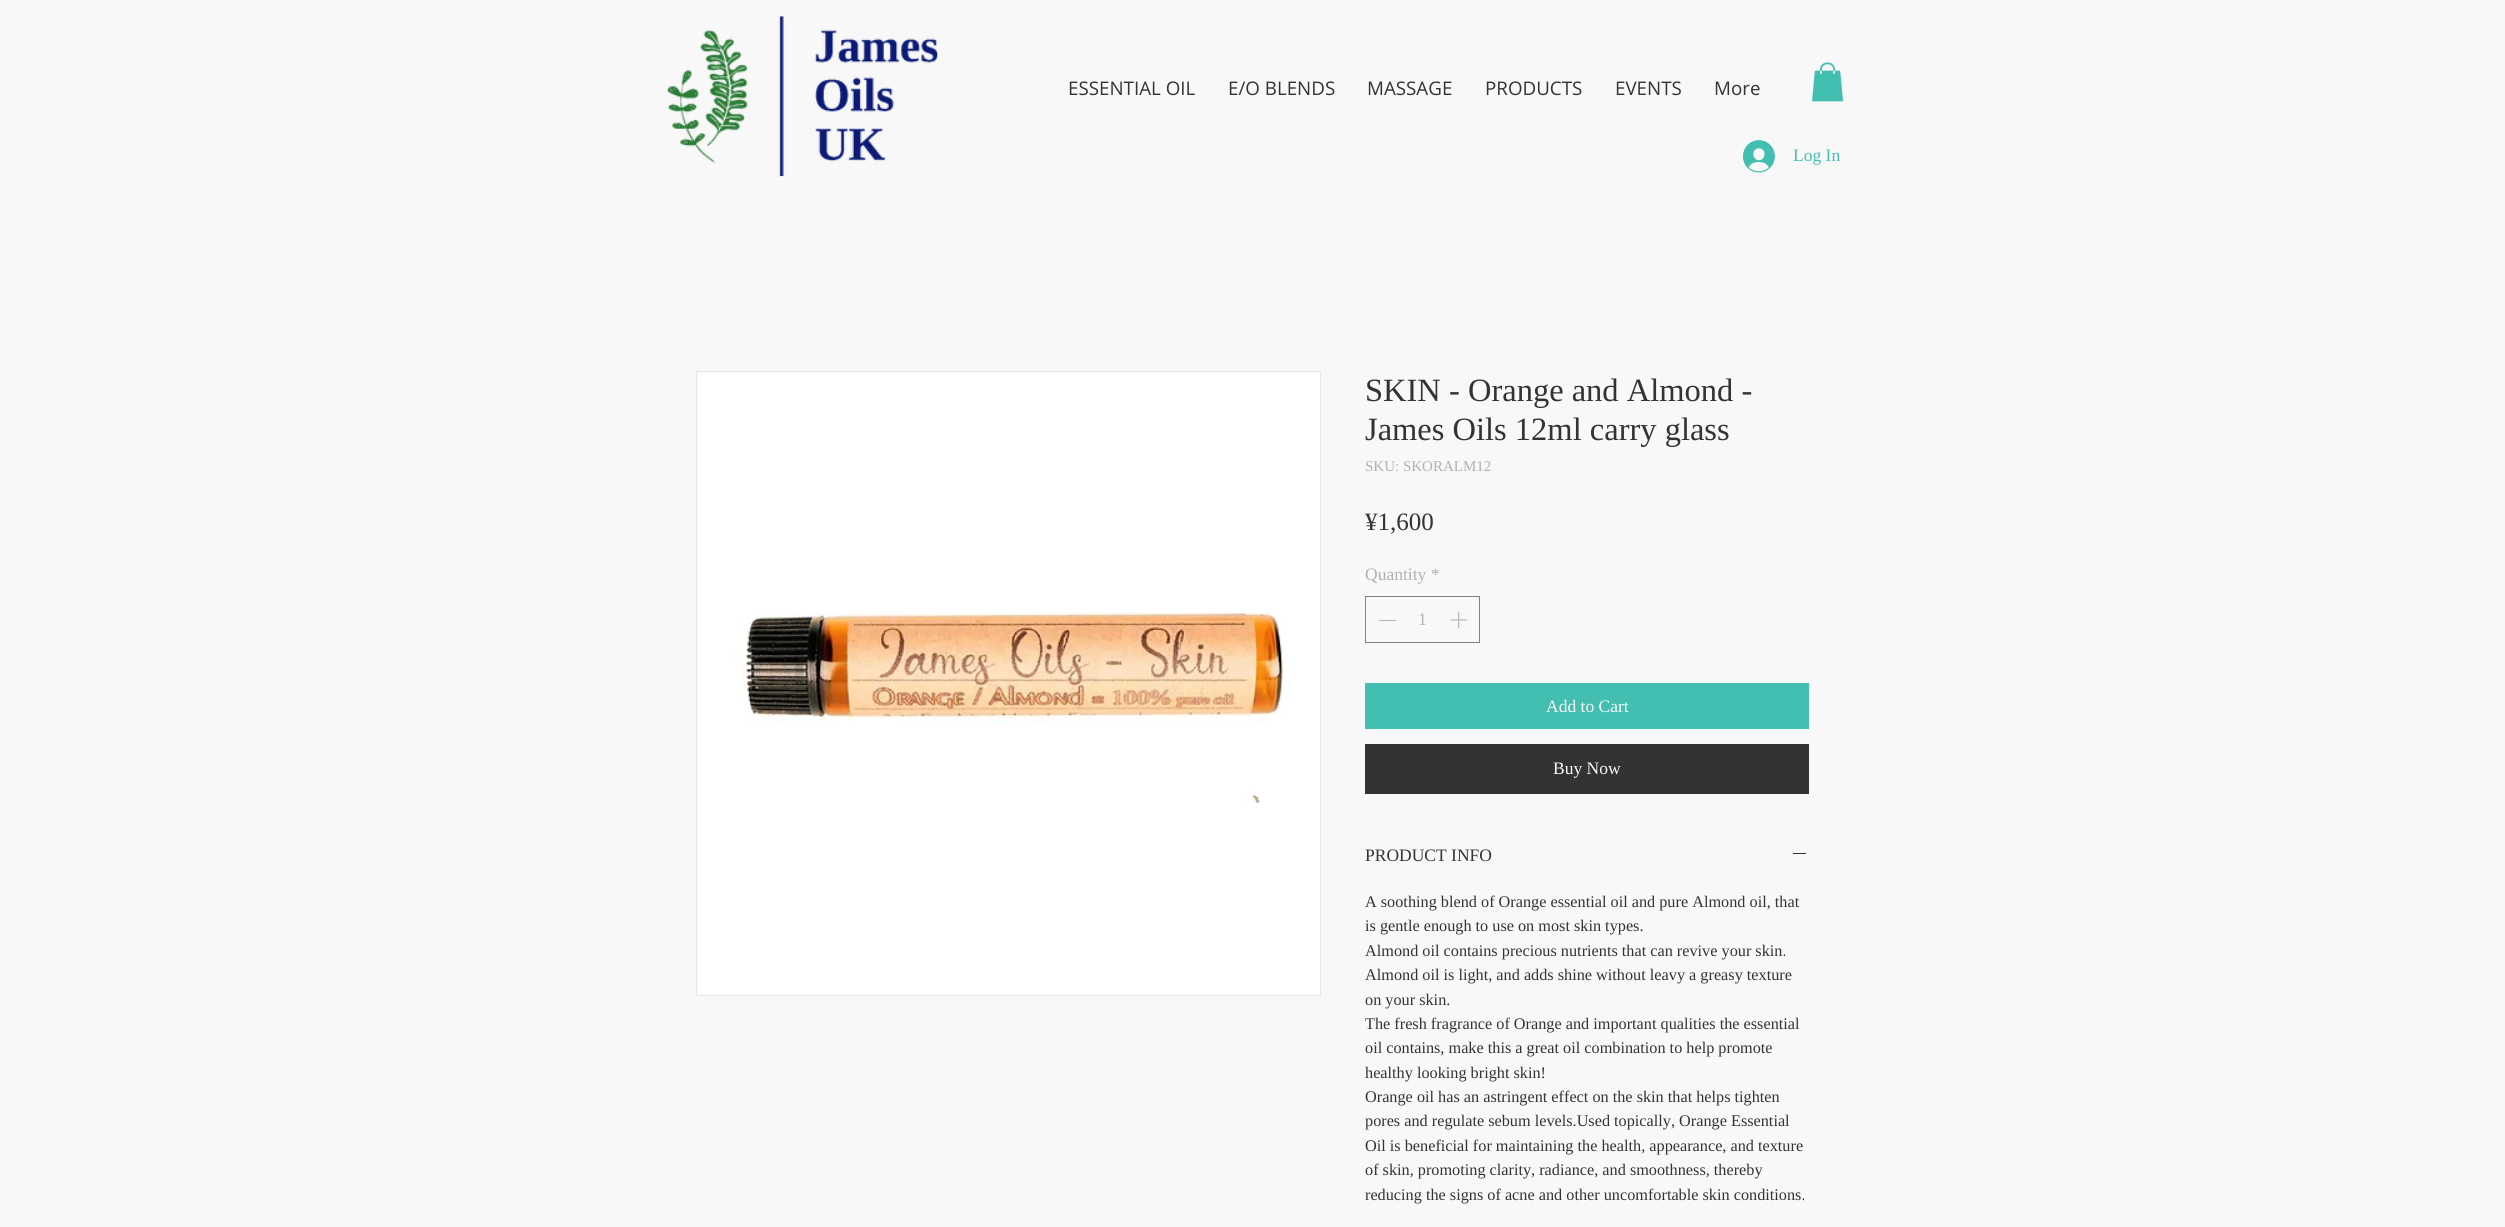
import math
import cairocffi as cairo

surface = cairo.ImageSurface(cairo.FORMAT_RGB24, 2505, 1227)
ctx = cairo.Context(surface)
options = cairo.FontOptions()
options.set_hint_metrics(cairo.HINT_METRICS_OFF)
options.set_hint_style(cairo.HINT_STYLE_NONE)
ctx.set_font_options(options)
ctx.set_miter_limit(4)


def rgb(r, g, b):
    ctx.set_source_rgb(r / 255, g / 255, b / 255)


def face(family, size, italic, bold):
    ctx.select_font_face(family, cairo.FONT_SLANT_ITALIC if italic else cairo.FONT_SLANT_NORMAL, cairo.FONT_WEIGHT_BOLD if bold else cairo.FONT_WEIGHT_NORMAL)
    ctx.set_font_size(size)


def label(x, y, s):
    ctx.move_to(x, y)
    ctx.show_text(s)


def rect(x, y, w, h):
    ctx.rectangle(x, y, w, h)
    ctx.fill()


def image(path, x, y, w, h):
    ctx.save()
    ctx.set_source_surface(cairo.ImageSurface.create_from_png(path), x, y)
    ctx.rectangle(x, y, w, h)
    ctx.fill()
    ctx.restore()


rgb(248, 248, 248)
ctx.paint()
image('image0.png', 667, 16, 271, 161)
face('Open Sans', 18.75, 0, 0)
rgb(51, 51, 51)
label(1068, 95, 'ESSENTIAL OIL')
label(1228, 95, 'E/O BLENDS')
label(1367, 95, 'MASSAGE')
label(1485, 95, 'PRODUCTS')
label(1615, 95, 'EVENTS')
label(1714, 95, 'More')
image('image1.png', 1812, 62, 31, 40)
image('image2.png', 1743, 140, 32, 33)
face('Liberation Serif', 17.5, 0, 0)
rgb(66, 191, 176)
label(1793, 161, 'Log In')
ctx.rectangle(696.5, 371.5, 624, 624)
rgb(232, 232, 232)
ctx.set_line_width(1)
ctx.stroke()
image('image3.png', 698, 373, 622, 622)
face('Liberation Serif', 32.5, 0, 0)
rgb(51, 51, 51)
label(1365, 401, 'SKIN - Orange and Almond -')
label(1365, 440, 'James Oils 12ml carry glass')
face('Liberation Serif', 15, 0, 0)
rgb(178, 177, 177)
label(1365, 471, 'SKU: SKORALM12')
face('Liberation Serif', 25, 0, 0)
rgb(51, 51, 51)
label(1365, 530, '¥1,600')
face('Liberation Serif', 17.5, 0, 0)
rgb(178, 177, 177)
label(1365, 580, 'Quantity')
label(1431, 580, '*')
ctx.rectangle(1365.5, 596.5, 114, 46)
rgb(130, 130, 130)
ctx.stroke()
rgb(178, 177, 177)
rect(1379, 620, 17, 1)
label(1418, 625, '1')
image('image4.png', 1450, 611, 17, 18)
rgb(66, 191, 176)
rect(1365, 683, 444, 46)
rgb(248, 248, 248)
label(1546, 712, 'Add to Cart')
rgb(51, 51, 51)
rect(1365, 744, 444, 50)
rgb(248, 248, 248)
label(1553, 774, 'Buy Now')
rgb(51, 51, 51)
label(1365, 861, 'PRODUCT INFO')
rect(1793, 853, 13, 1)
face('Liberation Serif', 16.25, 0, 0)
label(1365, 907, 'A soothing blend of Orange essential oil and pure Almond oil, that')
label(1365, 931, 'is gentle enough to use on most skin types.')
label(1365, 956, 'Almond oil contains precious nutrients that can revive your skin.')
label(1365, 980, 'Almond oil is light, and adds shine without leavy a greasy texture')
label(1365, 1005, 'on your skin.')
label(1365, 1029, 'The fresh fragrance of Orange and important qualities the essential')
label(1365, 1053, 'oil contains, make this a great oil combination to help promote')
label(1365, 1078, 'healthy looking bright skin!')
label(1365, 1102, 'Orange oil has an astringent effect on the skin that helps tighten')
label(1365, 1126, 'pores and regulate sebum levels.Used topically, Orange Essential')
label(1365, 1151, 'Oil is beneficial for maintaining the health, appearance, and texture')
label(1365, 1175, 'of skin, promoting clarity, radiance, and smoothness, thereby')
label(1365, 1200, 'reducing the signs of acne and other uncomfortable skin conditions.')
surface.write_to_png('render.png')
